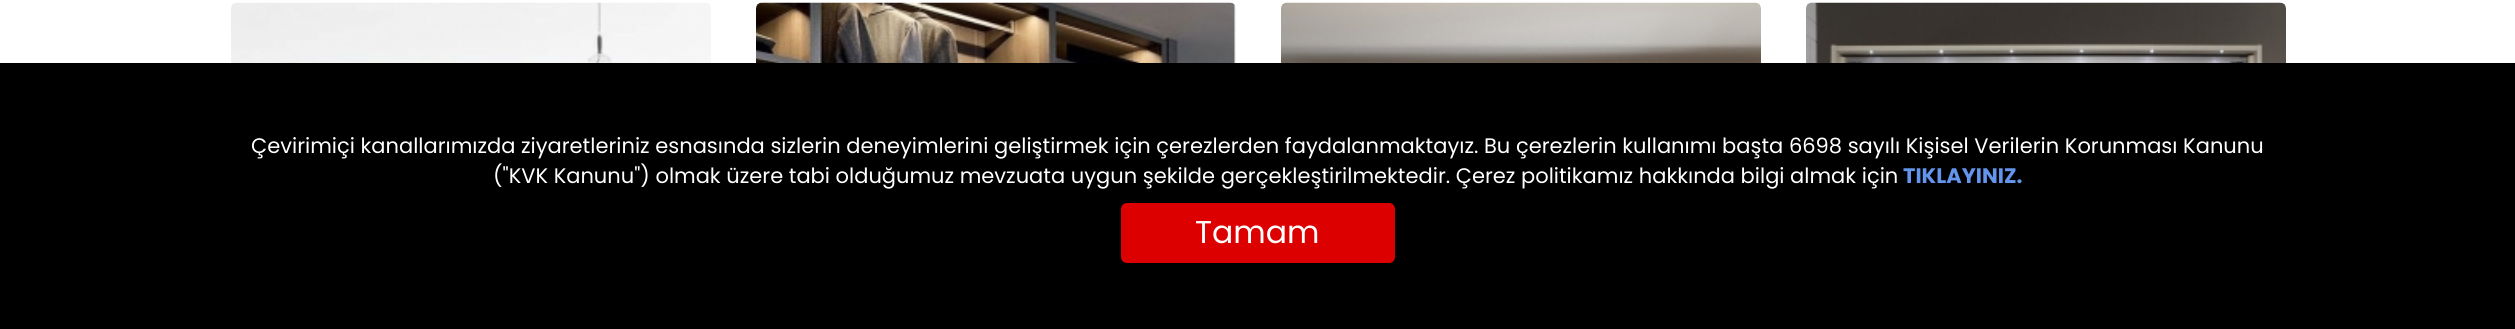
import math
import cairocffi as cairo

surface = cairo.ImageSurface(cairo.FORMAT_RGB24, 2515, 329)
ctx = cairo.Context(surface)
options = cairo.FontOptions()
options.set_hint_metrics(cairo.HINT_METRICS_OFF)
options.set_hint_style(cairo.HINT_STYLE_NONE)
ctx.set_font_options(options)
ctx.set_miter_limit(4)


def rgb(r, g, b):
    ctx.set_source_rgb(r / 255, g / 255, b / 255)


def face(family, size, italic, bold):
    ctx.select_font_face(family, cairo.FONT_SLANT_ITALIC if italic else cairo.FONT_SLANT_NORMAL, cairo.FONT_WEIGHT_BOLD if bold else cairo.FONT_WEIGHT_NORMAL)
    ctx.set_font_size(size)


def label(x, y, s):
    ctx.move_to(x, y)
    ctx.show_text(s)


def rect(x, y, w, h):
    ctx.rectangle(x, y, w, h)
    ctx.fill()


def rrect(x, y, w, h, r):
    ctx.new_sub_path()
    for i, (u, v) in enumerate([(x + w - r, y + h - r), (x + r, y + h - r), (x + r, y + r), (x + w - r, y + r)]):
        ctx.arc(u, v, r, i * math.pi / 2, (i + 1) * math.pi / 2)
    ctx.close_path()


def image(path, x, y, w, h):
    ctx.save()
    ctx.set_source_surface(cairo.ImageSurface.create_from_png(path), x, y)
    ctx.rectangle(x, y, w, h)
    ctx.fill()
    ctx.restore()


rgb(255, 255, 255)
ctx.paint()
image('image0.png', 231, 2, 480, 61)
image('image1.png', 756, 2, 480, 61)
image('image2.png', 1281, 2, 480, 61)
image('image3.png', 1806, 2, 480, 61)
rgb(0, 0, 0)
rect(0, 63, 2515, 266)
face('Poppins', 21, 0, 0)
rgb(255, 255, 255)
label(251, 153, 'Çevirimiçi kanallarımızda ziyaretleriniz esnasında sizlerin deneyimlerini geliştirmek için çerezlerden faydalanmaktayız. Bu çerezlerin kullanımı başta 6698 sayılı Kişisel Verilerin Korunması Kanunu')
label(493, 183, '("KVK Kanunu") olmak üzere tabi olduğumuz mevzuata uygun şekilde gerçekleştirilmektedir. Çerez politikamız hakkında bilgi almak için')
face('Poppins', 21, 0, 1)
rgb(100, 149, 237)
label(1903, 183, 'TIKLAYINIZ.')
rgb(220, 0, 0)
rrect(1121, 203, 274, 60, 6)
ctx.fill()
face('Poppins', 31.5, 0, 0)
rgb(255, 255, 255)
label(1195, 243, 'Tamam')
surface.write_to_png('render.png')
